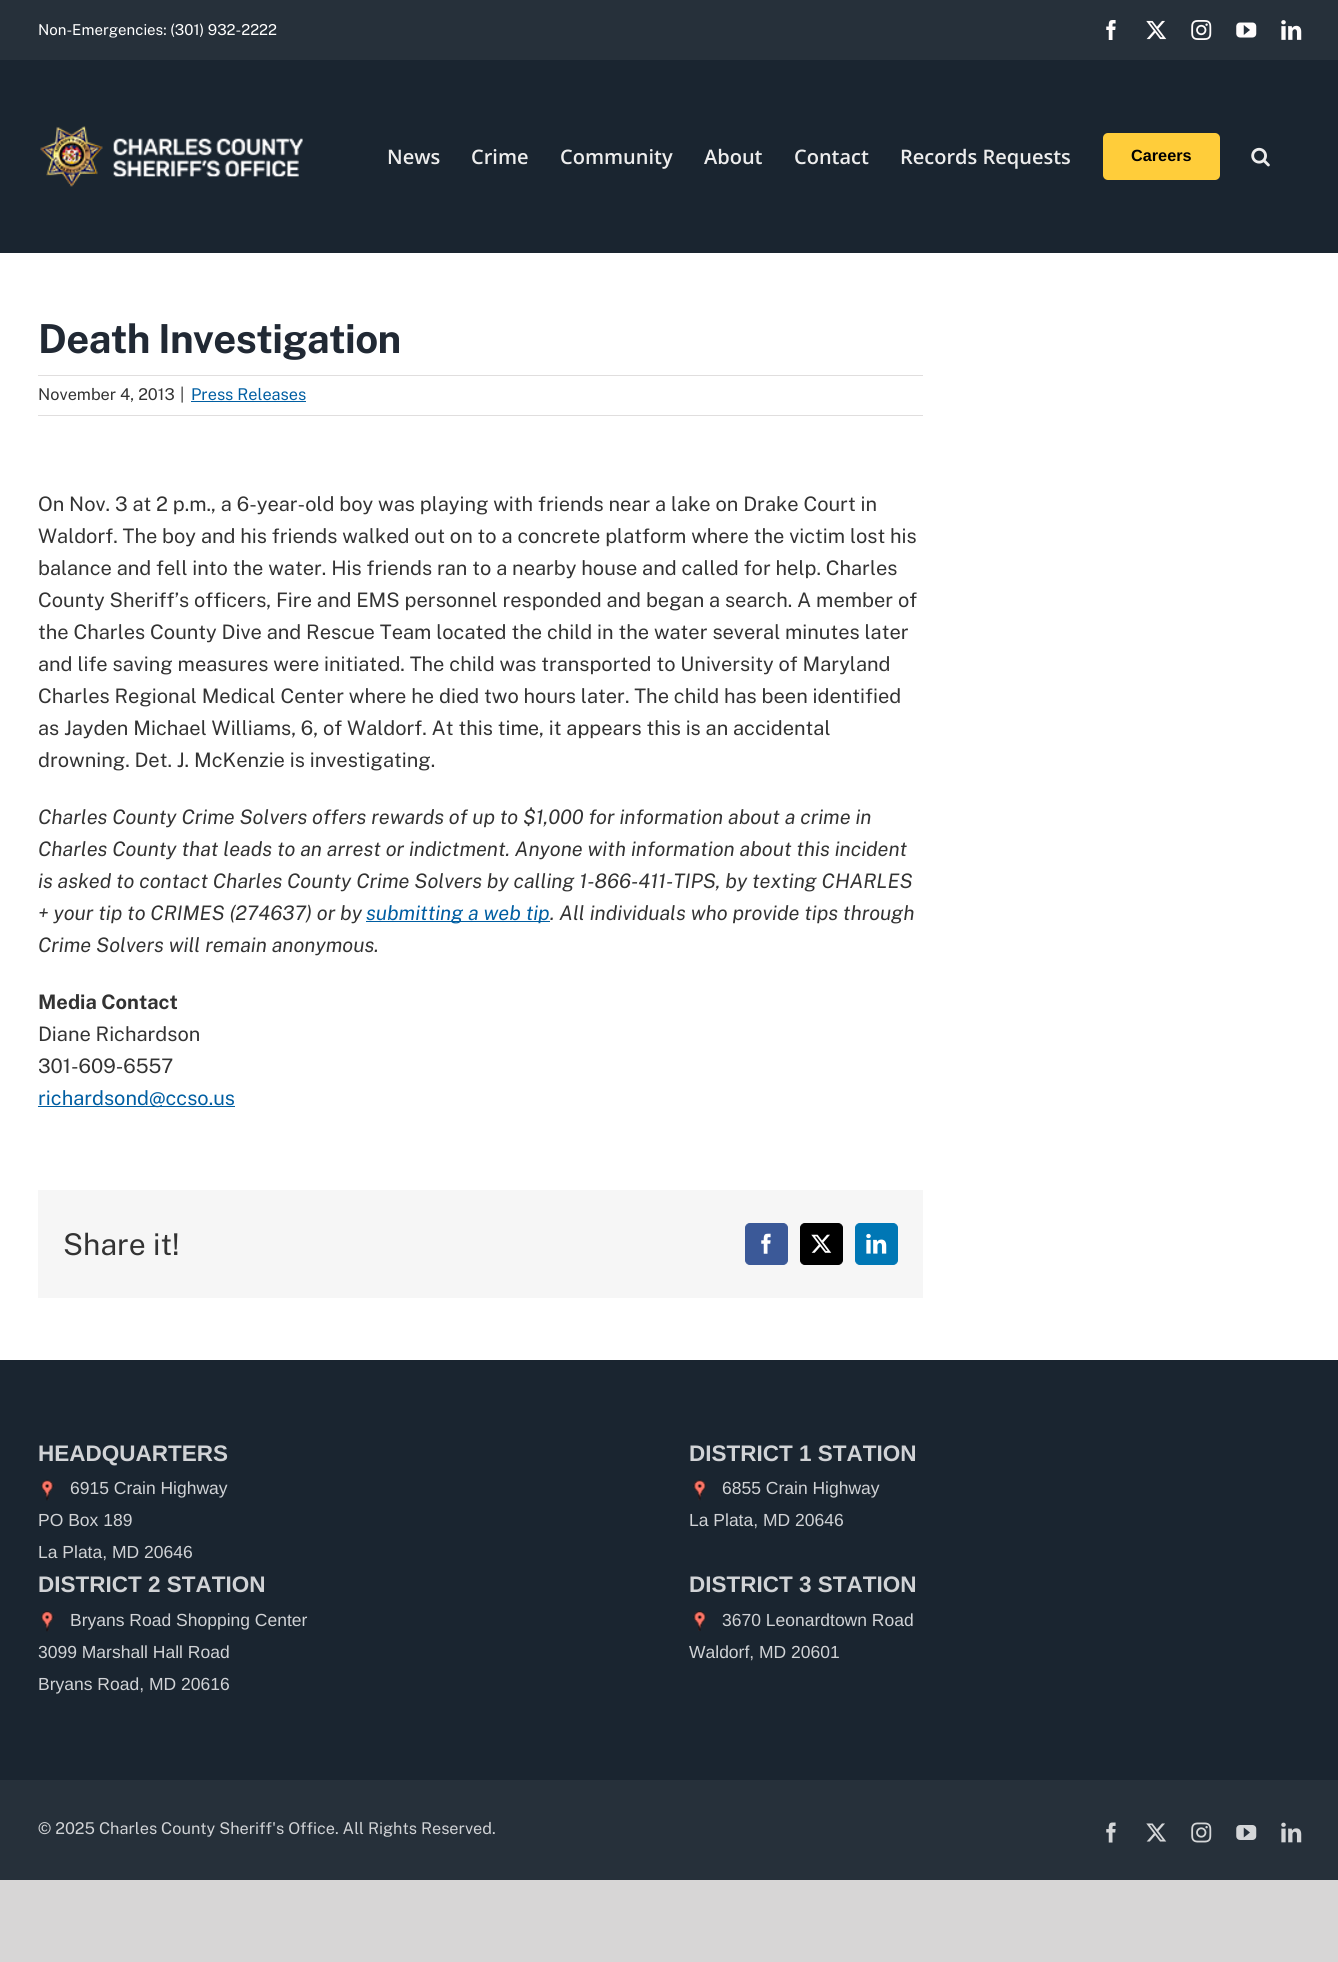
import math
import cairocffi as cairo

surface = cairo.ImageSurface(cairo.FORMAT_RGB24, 1338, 1962)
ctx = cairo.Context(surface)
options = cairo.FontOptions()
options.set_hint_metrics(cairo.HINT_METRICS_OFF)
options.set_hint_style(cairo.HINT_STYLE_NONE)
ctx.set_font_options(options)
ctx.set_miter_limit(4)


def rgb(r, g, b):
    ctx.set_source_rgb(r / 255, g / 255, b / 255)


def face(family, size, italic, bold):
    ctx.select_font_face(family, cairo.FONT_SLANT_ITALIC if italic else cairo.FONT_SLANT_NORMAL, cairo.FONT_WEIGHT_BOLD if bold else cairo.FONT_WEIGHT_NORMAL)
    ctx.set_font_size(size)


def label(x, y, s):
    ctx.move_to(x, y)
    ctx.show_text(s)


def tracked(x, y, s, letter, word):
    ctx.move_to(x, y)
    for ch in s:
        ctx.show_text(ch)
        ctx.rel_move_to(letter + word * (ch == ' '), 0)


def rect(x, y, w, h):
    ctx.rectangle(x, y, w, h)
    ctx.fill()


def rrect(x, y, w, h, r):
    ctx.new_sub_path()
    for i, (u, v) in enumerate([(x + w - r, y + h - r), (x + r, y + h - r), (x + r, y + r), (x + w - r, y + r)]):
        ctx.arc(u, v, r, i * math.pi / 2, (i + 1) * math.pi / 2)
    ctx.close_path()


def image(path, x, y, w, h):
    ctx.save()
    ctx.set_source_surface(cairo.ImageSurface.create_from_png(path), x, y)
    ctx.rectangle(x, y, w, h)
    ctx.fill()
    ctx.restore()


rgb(215, 214, 214)
ctx.paint()
rgb(255, 255, 255)
rect(0, 253, 1338, 1107)
rgb(38, 48, 58)
rect(0, 0, 1338, 60)
rgb(26, 37, 48)
rect(0, 60, 1338, 193)
face('Public Sans', 15, 0, 0)
rgb(255, 255, 255)
label(38, 35, 'Non-Emergencies: (301) 932-2222')
image('image0.png', 1106, 20, 10, 20)
image('image1.png', 1146, 20, 21, 20)
image('image2.png', 1191, 20, 21, 20)
image('image3.png', 1236, 22, 21, 16)
image('image4.png', 1281, 20, 21, 20)
image('image5.png', 40, 126, 263, 61)
face('Open Sans SemiBold', 20, 0, 0)
rgb(237, 237, 237)
label(387, 164, 'News')
label(471, 164, 'Crime')
label(560, 164, 'Community')
label(704, 164, 'About')
label(794, 164, 'Contact')
label(900, 164, 'Records Requests')
rgb(255, 205, 58)
rrect(1103, 133, 117, 47, 5)
ctx.fill()
face('Liberation Sans', 16.25, 0, 1)
rgb(0, 0, 0)
label(1131, 161, 'Careers')
image('image6.png', 1251, 147, 19, 20)
face('Public Sans', 40, 0, 1)
rgb(33, 41, 52)
tracked(38, 353, 'Death Investigation', -0.6, 0)
rgb(224, 222, 222)
rect(38, 375, 885, 1)
rect(38, 415, 885, 1)
face('Public Sans', 16.25, 0, 0)
rgb(51, 51, 51)
label(38, 400, 'November 4, 2013')
label(180, 400, '|')
rgb(0, 94, 162)
label(191, 400, 'Press Releases')
rect(191, 401, 115, 1)
face('Public Sans', 20, 0, 0)
rgb(51, 51, 51)
label(38, 511, 'On Nov. 3 at 2 p.m., a 6-year-old boy was playing with friends near a lake on Drake Court in')
label(38, 543, 'Waldorf. The boy and his friends walked out on to a concrete platform where the victim lost his')
label(38, 575, 'balance and fell into the water. His friends ran to a nearby house and called for help. Charles')
label(38, 607, 'County Sheriff’s officers, Fire and EMS personnel responded and began a search. A member of')
label(38, 639, 'the Charles County Dive and Rescue Team located the child in the water several minutes later')
label(38, 671, 'and life saving measures were initiated. The child was transported to University of Maryland')
label(38, 703, 'Charles Regional Medical Center where he died two hours later. The child has been identified')
label(38, 735, 'as Jayden Michael Williams, 6, of Waldorf. At this time, it appears this is an accidental')
label(38, 767, 'drowning. Det. J. McKenzie is investigating.')
face('Public Sans', 20, 1, 0)
label(38, 824, 'Charles County Crime Solvers offers rewards of up to $1,000 for information about a crime in')
label(38, 856, 'Charles County that leads to an arrest or indictment. Anyone with information about this incident')
label(38, 888, 'is asked to contact Charles County Crime Solvers by calling 1-866-411-TIPS, by texting CHARLES')
label(38, 920, '+ your tip to CRIMES (274637) or by')
rgb(0, 94, 162)
rect(366, 921, 184, 1)
label(366, 920, 'submitting a web tip')
rgb(51, 51, 51)
label(550, 920, '. All individuals who provide tips through')
label(38, 952, 'Crime Solvers will remain anonymous.')
face('Public Sans', 20, 0, 1)
label(38, 1009, 'Media Contact')
face('Public Sans', 20, 0, 0)
label(38, 1041, 'Diane Richardson')
label(38, 1073, '301-609-6557')
rgb(0, 94, 162)
rect(38, 1106, 197, 1)
label(38, 1105, 'richardsond@ccso.us')
rgb(246, 246, 246)
rect(38, 1190, 885, 108)
face('Public Sans', 30, 0, 0)
rgb(51, 51, 51)
label(63, 1255, 'Share it!')
rgb(59, 89, 152)
rrect(745.5, 1223.5, 42, 41, 4.5)
ctx.fill_preserve()
ctx.set_line_width(1)
ctx.stroke()
image('image7.png', 761, 1233, 10, 21)
rgb(0, 0, 0)
rrect(800.5, 1223.5, 42, 41, 4.5)
ctx.fill_preserve()
ctx.stroke()
image('image8.png', 811, 1234, 21, 19)
rgb(0, 119, 181)
rrect(855.5, 1223.5, 42, 41, 4.5)
ctx.fill_preserve()
ctx.stroke()
image('image9.png', 866, 1233, 21, 21)
rgb(26, 37, 48)
rect(0, 1360, 1338, 420)
face('Liberation Sans', 22.5, 0, 1)
rgb(209, 211, 214)
label(38, 1461, 'HEADQUARTERS')
image('image10.png', 41, 1479, 13, 22)
face('Liberation Sans', 17.5, 0, 0)
label(70, 1494, '6915 Crain Highway')
label(38, 1526, 'PO Box 189')
label(38, 1558, 'La Plata, MD 20646')
face('Liberation Sans', 22.5, 0, 1)
label(689, 1461, 'DISTRICT 1 STATION')
image('image11.png', 693, 1479, 13, 22)
face('Liberation Sans', 17.5, 0, 0)
label(722, 1494, '6855 Crain Highway')
label(689, 1526, 'La Plata, MD 20646')
face('Liberation Sans', 22.5, 0, 1)
label(38, 1592, 'DISTRICT 2 STATION')
image('image12.png', 41, 1611, 13, 21)
face('Liberation Sans', 17.5, 0, 0)
label(70, 1626, 'Bryans Road Shopping Center')
label(38, 1658, '3099 Marshall Hall Road')
label(38, 1690, 'Bryans Road, MD 20616')
face('Liberation Sans', 22.5, 0, 1)
label(689, 1592, 'DISTRICT 3 STATION')
image('image13.png', 693, 1611, 13, 20)
face('Liberation Sans', 17.5, 0, 0)
label(722, 1626, '3670 Leonardtown Road')
label(689, 1658, 'Waldorf, MD 20601')
rgb(38, 48, 58)
rect(0, 1780, 1338, 100)
face('Public Sans', 16.25, 0, 0)
rgb(209, 211, 214)
label(38, 1834, '© 2025 Charles County Sheriff\'s Office. All Rights Reserved.')
image('image14.png', 1106, 1822, 10, 21)
image('image15.png', 1146, 1823, 21, 19)
image('image16.png', 1191, 1822, 21, 21)
image('image17.png', 1236, 1825, 21, 15)
image('image18.png', 1281, 1822, 21, 21)
surface.write_to_png('render.png')
